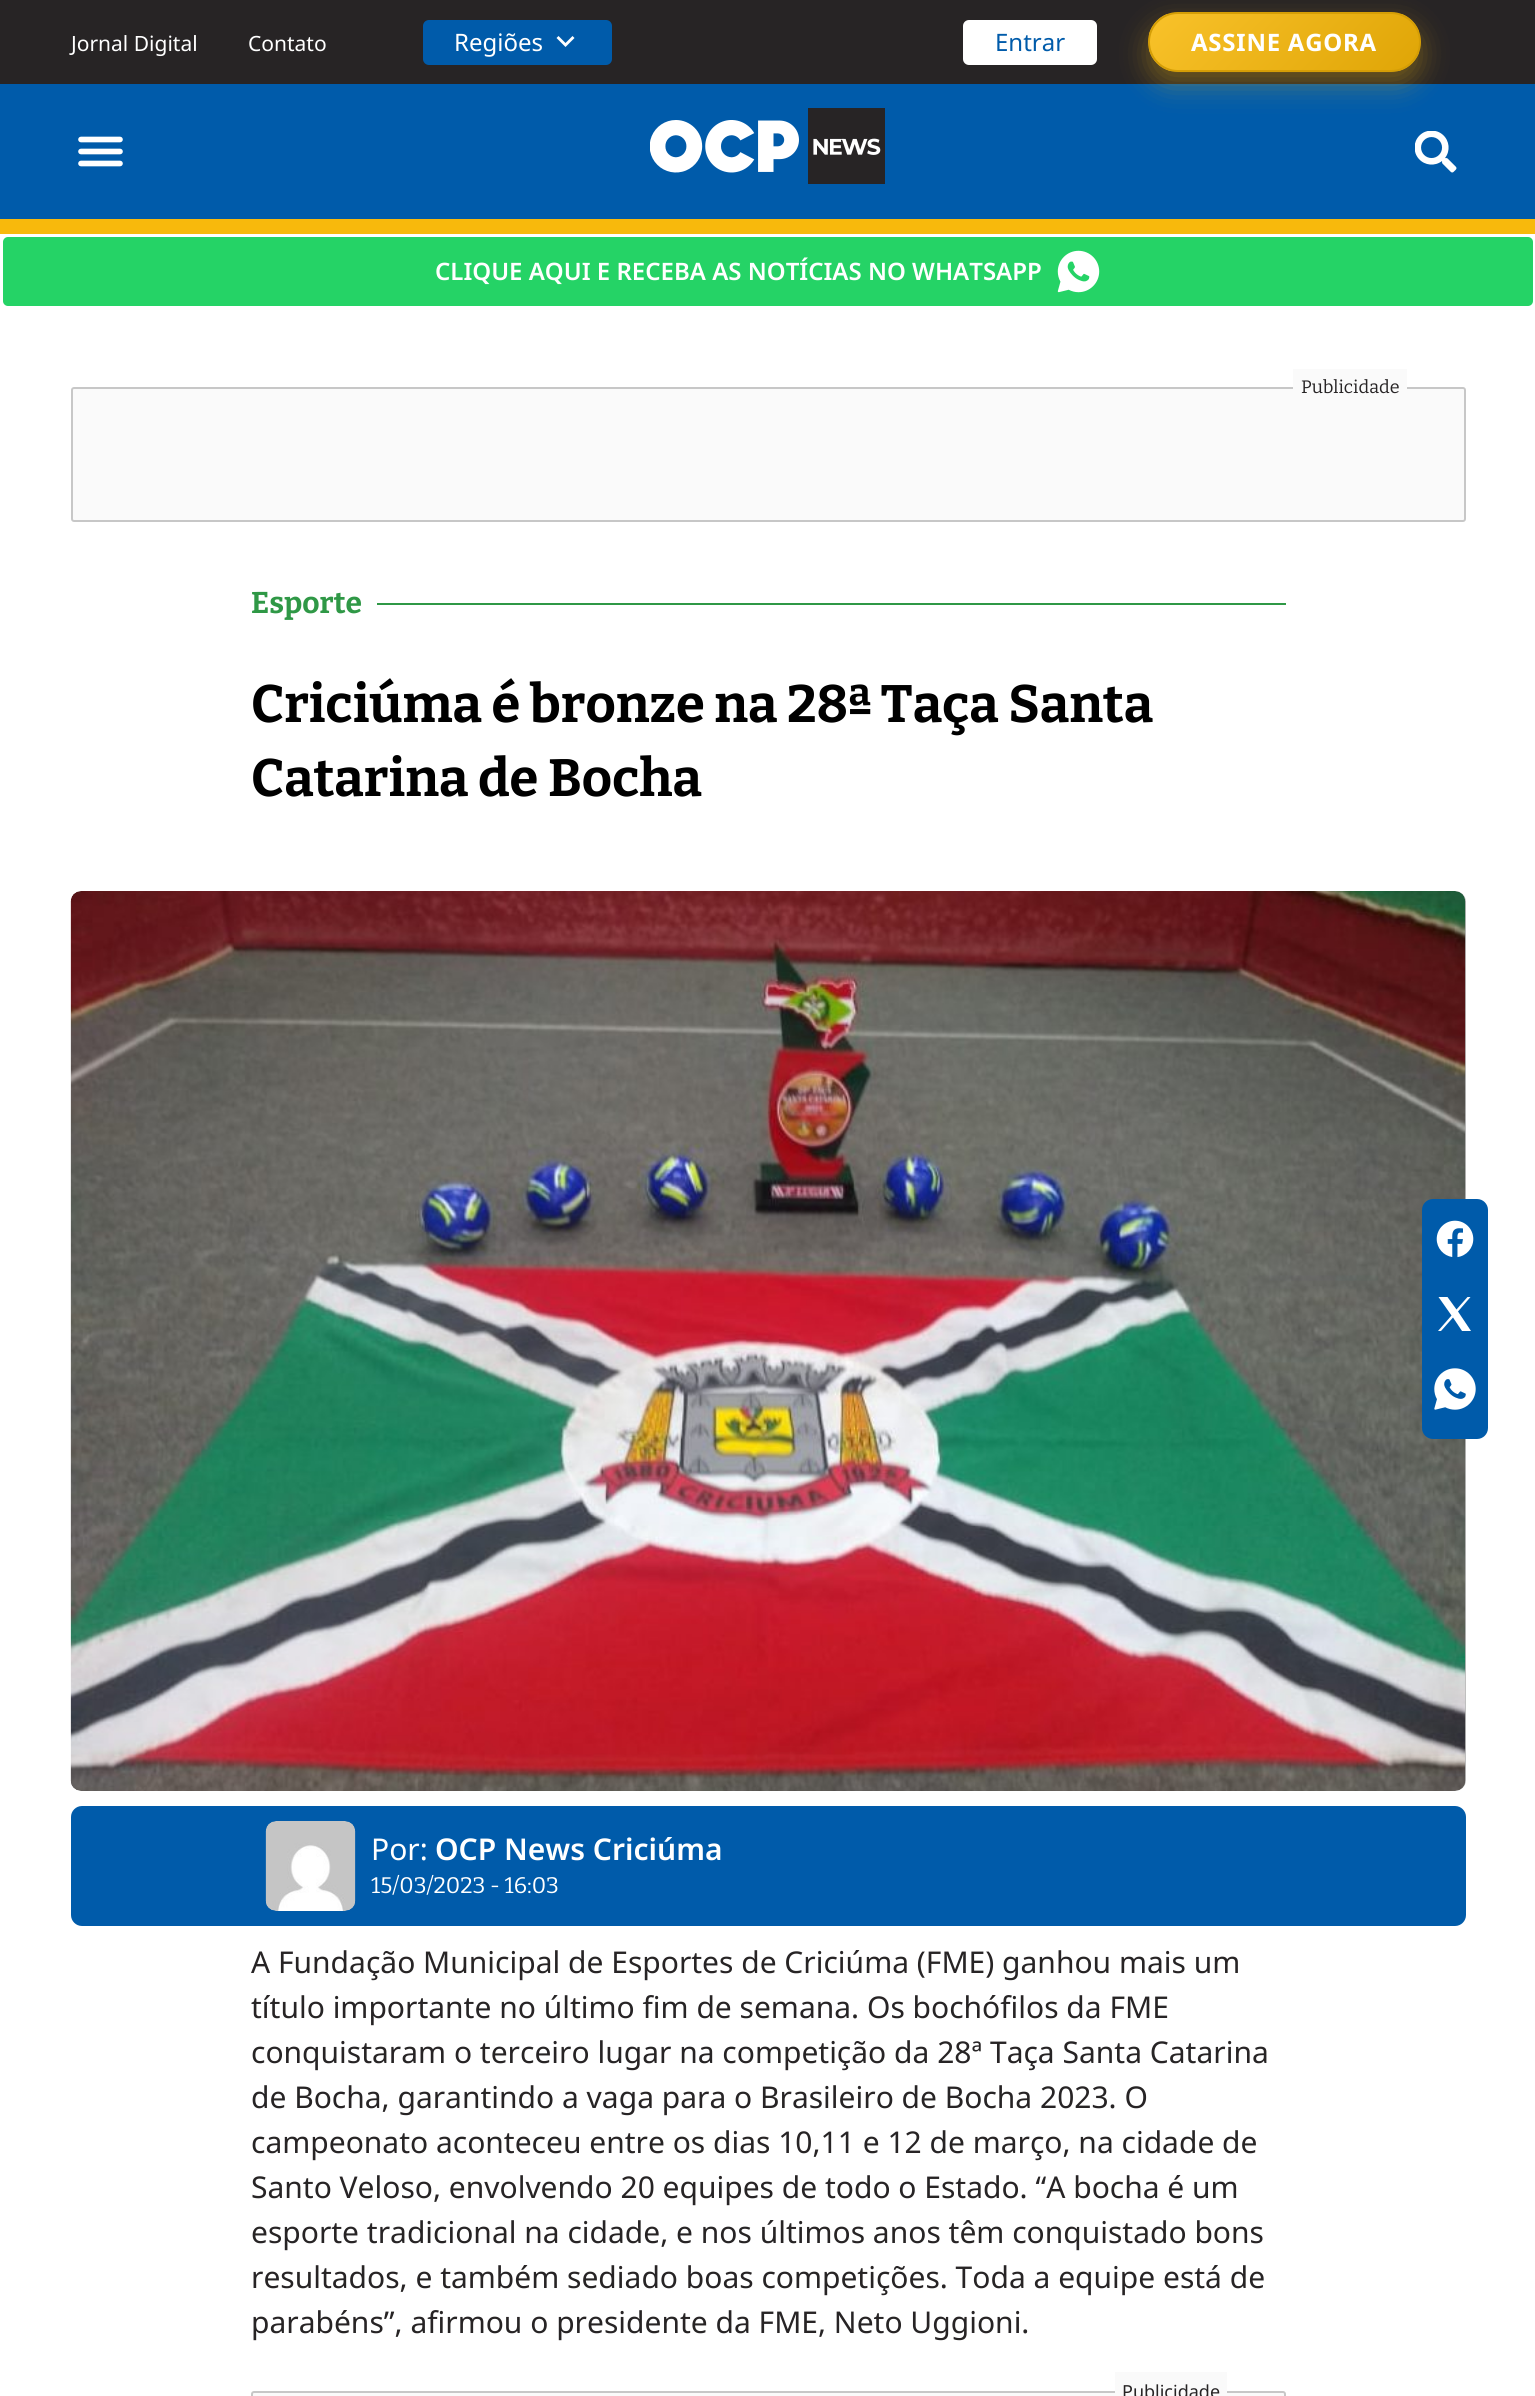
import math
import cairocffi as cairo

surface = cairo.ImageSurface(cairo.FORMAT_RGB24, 1535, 2396)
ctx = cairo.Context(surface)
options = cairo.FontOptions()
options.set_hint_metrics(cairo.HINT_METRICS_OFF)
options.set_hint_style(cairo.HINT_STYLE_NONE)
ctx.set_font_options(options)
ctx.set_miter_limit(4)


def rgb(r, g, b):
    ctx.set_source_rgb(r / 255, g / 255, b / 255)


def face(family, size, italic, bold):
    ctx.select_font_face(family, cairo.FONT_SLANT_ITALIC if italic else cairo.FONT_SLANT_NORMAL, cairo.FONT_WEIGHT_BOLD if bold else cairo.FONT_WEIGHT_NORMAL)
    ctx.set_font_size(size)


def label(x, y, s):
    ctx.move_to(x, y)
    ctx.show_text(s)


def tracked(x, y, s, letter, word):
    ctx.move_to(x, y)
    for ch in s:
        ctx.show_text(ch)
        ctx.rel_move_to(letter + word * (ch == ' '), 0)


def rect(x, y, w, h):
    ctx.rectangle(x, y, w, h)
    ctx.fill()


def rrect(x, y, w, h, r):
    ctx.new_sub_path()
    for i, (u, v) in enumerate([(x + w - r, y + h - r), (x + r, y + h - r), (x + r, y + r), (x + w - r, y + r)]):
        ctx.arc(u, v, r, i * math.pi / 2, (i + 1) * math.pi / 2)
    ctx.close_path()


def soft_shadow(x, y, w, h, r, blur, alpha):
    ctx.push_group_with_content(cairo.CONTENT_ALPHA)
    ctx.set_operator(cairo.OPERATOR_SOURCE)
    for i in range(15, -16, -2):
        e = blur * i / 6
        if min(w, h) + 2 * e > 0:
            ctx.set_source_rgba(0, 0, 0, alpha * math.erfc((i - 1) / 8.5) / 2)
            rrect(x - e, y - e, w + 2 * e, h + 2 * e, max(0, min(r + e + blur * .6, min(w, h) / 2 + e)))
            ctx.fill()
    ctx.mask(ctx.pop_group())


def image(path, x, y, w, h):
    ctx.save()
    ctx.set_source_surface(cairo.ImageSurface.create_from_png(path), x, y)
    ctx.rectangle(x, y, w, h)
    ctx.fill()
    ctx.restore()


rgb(255, 255, 255)
ctx.paint()
rgb(39, 36, 37)
rect(0, 0, 1535, 84)
face('Noto Sans', 21, 0, 0)
rgb(255, 255, 255)
label(71, 51, 'Jornal Digital')
label(248, 51, 'Contato')
rgb(0, 91, 170)
rrect(424, 21, 187, 43, 5)
ctx.fill_preserve()
ctx.stroke()
face('Noto Sans', 24, 0, 0)
rgb(255, 255, 255)
label(454, 51, 'Regiões')
ctx.new_path()
ctx.move_to(565.5, 47)
ctx.line_to(556.5, 38)
ctx.line_to(558.5, 36)
ctx.line_to(565.5, 43)
ctx.line_to(572.5, 36)
ctx.line_to(574.5, 38)
ctx.close_path()
ctx.fill()
rrect(964, 21, 132, 43, 5)
ctx.fill_preserve()
ctx.stroke()
rgb(0, 91, 170)
label(995, 51, 'Entrar')
rect(0, 84, 1535, 135)
rgb(248, 185, 12)
soft_shadow(1148, 24, 273, 60, 30, 13.5, 0.35)
ctx.save()
rrect(1148, 12, 273, 60, 30)
ctx.clip()
gradient = cairo.LinearGradient(1202, -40, 1366, 124)
gradient.add_color_stop_rgba(0, 0.976, 0.761, 0.165, 1)
gradient.add_color_stop_rgba(1, 0.875, 0.647, 0.024, 1)
ctx.set_source(gradient)
rect(1149, 14, 270, 57)
ctx.restore()
rrect(1149, 13, 271, 58, 29)
rgb(213, 158, 6)
ctx.stroke()
face('Noto Sans', 24, 0, 1)
rgb(255, 255, 255)
tracked(1191, 51, 'ASSINE AGORA', 0.75, 0)
rgb(248, 185, 12)
rect(0, 219, 1535, 15)
ctx.new_path()
ctx.move_to(81, 139.5)
ctx.line_to(120, 139.5)
ctx.move_to(81, 151.5)
ctx.line_to(120, 151.5)
ctx.move_to(81, 163.5)
ctx.line_to(120, 163.5)
rgb(255, 255, 255)
ctx.set_line_width(5.6)
ctx.set_line_cap(cairo.LINE_CAP_ROUND)
ctx.stroke()
image('image0.png', 650, 108, 235, 76)
image('image1.png', 1415, 131, 42, 42)
rgb(37, 211, 102)
rrect(1.5, 235.5, 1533, 72, 6.5)
ctx.fill_preserve()
rgb(255, 255, 255)
ctx.set_line_width(3)
ctx.set_line_cap(cairo.LINE_CAP_BUTT)
ctx.stroke()
face('Noto Sans SemiBold', 24, 0, 0)
label(435, 280, 'CLIQUE AQUI E RECEBA AS NOTÍCIAS NO WHATSAPP')
image('image2.png', 1057, 250, 43, 43)
rgb(250, 250, 250)
rrect(72, 388, 1393, 133, 2)
ctx.fill_preserve()
rgb(199, 199, 199)
ctx.set_line_width(2)
ctx.stroke()
rgb(250, 250, 250)
rect(1293, 369, 114, 20)
face('Bitter', 18, 0, 0)
rgb(39, 36, 37)
label(1301, 393, 'Publicidade')
face('Bitter', 30, 0, 1)
rgb(47, 152, 70)
label(251, 613, 'Esporte')
rect(377, 603, 909, 2)
face('Bitter', 52.5, 0, 1)
rgb(0, 0, 0)
label(251, 722, 'Criciúma é bronze na 28ª Taça Santa')
label(251, 796, 'Catarina de Bocha')
rgb(188, 188, 188)
rrect(71, 891, 1395, 900, 11)
ctx.fill()
image('image5.png', 70, 891, 1396, 900)
rgb(0, 91, 170)
rrect(1422, 1199, 66, 240, 11)
ctx.fill()
image('image3.png', 1436, 1220, 38, 38)
rgb(255, 255, 255)
ctx.new_path()
ctx.move_to(1438.5, 1297)
ctx.line_to(1451.5, 1315.5)
ctx.line_to(1438, 1331)
ctx.line_to(1441, 1331)
ctx.line_to(1453, 1317.5)
ctx.line_to(1462, 1331)
ctx.line_to(1471, 1331)
ctx.line_to(1458, 1311.5)
ctx.line_to(1470.5, 1297)
ctx.line_to(1467.5, 1297)
ctx.line_to(1456.5, 1309.5)
ctx.line_to(1447.5, 1297)
ctx.close_path()
ctx.fill()
image('image4.png', 1434, 1368, 42, 42)
rgb(0, 91, 170)
rrect(71, 1806, 1395, 120, 11)
ctx.fill()
image('image6.png', 265, 1821, 91, 90)
face('Noto Sans', 30, 0, 0)
rgb(255, 255, 255)
label(371, 1860, 'Por:')
face('Noto Sans SemiBold', 30, 0, 0)
label(435, 1860, 'OCP News Criciúma')
face('Bitter', 22.5, 0, 0)
label(371, 1893, '15/03/2023 - 16:03')
face('Noto Sans', 30, 0, 0)
rgb(39, 36, 37)
label(251, 1973, 'A Fundação Municipal de Esportes de Criciúma (FME) ganhou mais um')
label(251, 2018, 'título importante no último fim de semana. Os bochófilos da FME')
label(251, 2063, 'conquistaram o terceiro lugar na competição da 28ª Taça Santa Catarina')
label(251, 2108, 'de Bocha, garantindo a vaga para o Brasileiro de Bocha 2023. O')
label(251, 2153, 'campeonato aconteceu entre os dias 10,11 e 12 de março, na cidade de')
label(251, 2198, 'Santo Veloso, envolvendo 20 equipes de todo o Estado. “A bocha é um')
label(251, 2243, 'esporte tradicional na cidade, e nos últimos anos têm conquistado bons')
label(251, 2288, 'resultados, e também sediado boas competições. Toda a equipe está de')
label(251, 2333, 'parabéns”, afirmou o presidente da FME, Neto Uggioni.')
rgb(250, 250, 250)
rrect(252, 2392, 1033, 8, 2)
ctx.fill_preserve()
rgb(199, 199, 199)
ctx.stroke()
rgb(250, 250, 250)
rect(1115, 2372, 112, 21)
face('Noto Sans', 18, 0, 0)
rgb(39, 36, 37)
label(1122, 2398, 'Publicidade')
surface.write_to_png('render.png')
